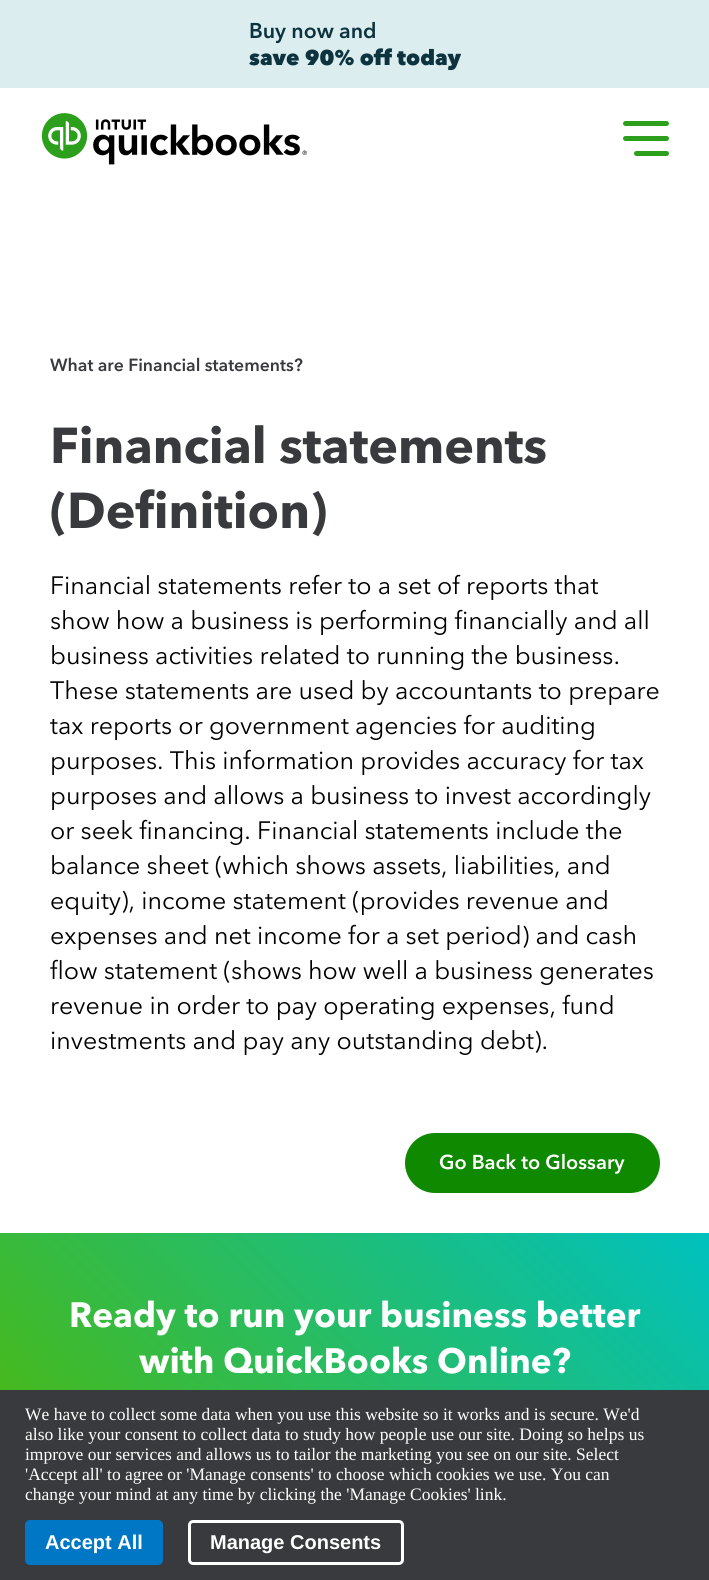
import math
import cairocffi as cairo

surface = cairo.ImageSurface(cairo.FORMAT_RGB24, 709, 1580)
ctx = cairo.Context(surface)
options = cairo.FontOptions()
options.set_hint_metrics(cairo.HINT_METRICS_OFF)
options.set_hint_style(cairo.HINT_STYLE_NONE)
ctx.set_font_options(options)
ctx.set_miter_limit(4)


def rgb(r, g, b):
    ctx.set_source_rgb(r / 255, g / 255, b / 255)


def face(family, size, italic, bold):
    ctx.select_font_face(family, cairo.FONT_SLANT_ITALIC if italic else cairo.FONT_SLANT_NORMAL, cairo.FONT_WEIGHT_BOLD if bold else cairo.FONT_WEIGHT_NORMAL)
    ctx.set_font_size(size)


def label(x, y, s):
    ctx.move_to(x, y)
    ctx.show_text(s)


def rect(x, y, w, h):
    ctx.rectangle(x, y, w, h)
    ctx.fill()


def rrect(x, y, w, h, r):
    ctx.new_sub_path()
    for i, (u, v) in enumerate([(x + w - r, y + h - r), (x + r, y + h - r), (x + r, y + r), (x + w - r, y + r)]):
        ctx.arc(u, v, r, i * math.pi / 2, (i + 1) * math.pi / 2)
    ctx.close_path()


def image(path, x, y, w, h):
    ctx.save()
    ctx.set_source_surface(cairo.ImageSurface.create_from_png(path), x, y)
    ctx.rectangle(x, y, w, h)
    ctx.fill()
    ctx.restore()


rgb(255, 255, 255)
ctx.paint()
rgb(219, 237, 238)
rect(0, 0, 709, 88)
face('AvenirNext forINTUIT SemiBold', 21.25, 0, 0)
rgb(13, 51, 63)
label(249, 38, 'Buy now and')
face('AvenirNext forINTUIT Black', 21.25, 0, 0)
label(249, 65, 'save 90% off today')
image('image0.png', 41, 113, 266, 52)
rgb(44, 160, 28)
rrect(623, 121, 46, 5, 2.5)
ctx.fill()
rrect(623, 136, 46, 5, 2.5)
ctx.fill()
rrect(634, 151, 35, 5, 2.5)
ctx.fill()
face('AvenirNext forINTUIT SemiBold', 17.5, 0, 0)
rgb(57, 58, 61)
label(50, 371, 'What are Financial statements?')
face('AvenirNext forINTUIT', 50, 0, 1)
label(50, 463, 'Financial statements')
label(50, 528, '(Definition)')
face('AvenirNext forINTUIT', 25, 0, 0)
rgb(0, 0, 0)
label(50, 594, 'Financial statements refer to a set of reports that')
label(50, 629, 'show how a business is performing financially and all')
label(50, 664, 'business activities related to running the business.')
label(50, 699, 'These statements are used by accountants to prepare')
label(50, 734, 'tax reports or government agencies for auditing')
label(50, 769, 'purposes. This information provides accuracy for tax')
label(50, 804, 'purposes and allows a business to invest accordingly')
label(50, 839, 'or seek financing. Financial statements include the')
label(50, 874, 'balance sheet (which shows assets, liabilities, and')
label(50, 909, 'equity), income statement (provides revenue and')
label(50, 944, 'expenses and net income for a set period) and cash')
label(50, 979, 'flow statement (shows how well a business generates')
label(50, 1014, 'revenue in order to pay operating expenses, fund')
label(50, 1049, 'investments and pay any outstanding debt).')
rgb(14, 137, 0)
rrect(405, 1133, 255, 60, 30)
ctx.fill()
face('AvenirNext forINTUIT SemiBold', 20, 0, 0)
rgb(255, 255, 255)
label(439, 1169, 'Go Back to Glossary')
gradient = cairo.LinearGradient(98, 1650, 612, 1135)
gradient.add_color_stop_rgba(0, 0.325, 0.718, 0, 1)
gradient.add_color_stop_rgba(1, 0, 0.757, 0.749, 1)
ctx.set_source(gradient)
rect(0, 1233, 709, 157)
face('AvenirNext forINTUIT', 35, 0, 1)
rgb(255, 255, 255)
label(69, 1327, 'Ready to run your business better')
label(139, 1373, 'with QuickBooks Online?')
rgb(57, 58, 61)
rect(0, 1390, 709, 190)
face('Liberation Serif', 17.5, 0, 0)
rgb(255, 255, 255)
label(25, 1420, 'We have to collect some data when you use this website so it works and is secure. We\'d')
label(25, 1440, 'also like your consent to collect data to study how people use our site. Doing so helps us')
label(25, 1460, 'improve our services and allows us to tailor the marketing you see on our site. Select')
label(25, 1480, '\'Accept all\' to agree or \'Manage consents\' to choose which cookies we use. You can')
label(25, 1500, 'change your mind at any time by clicking the \'Manage Cookies\' link.')
rgb(0, 119, 197)
rrect(25, 1520, 138, 45, 5)
ctx.fill()
face('Liberation Sans', 20, 0, 1)
rgb(255, 255, 255)
label(45, 1549, 'Accept All')
rrect(189.5, 1521.5, 213, 42, 3.5)
ctx.set_line_width(3)
ctx.stroke()
label(210, 1549, 'Manage Consents')
surface.write_to_png('render.png')
